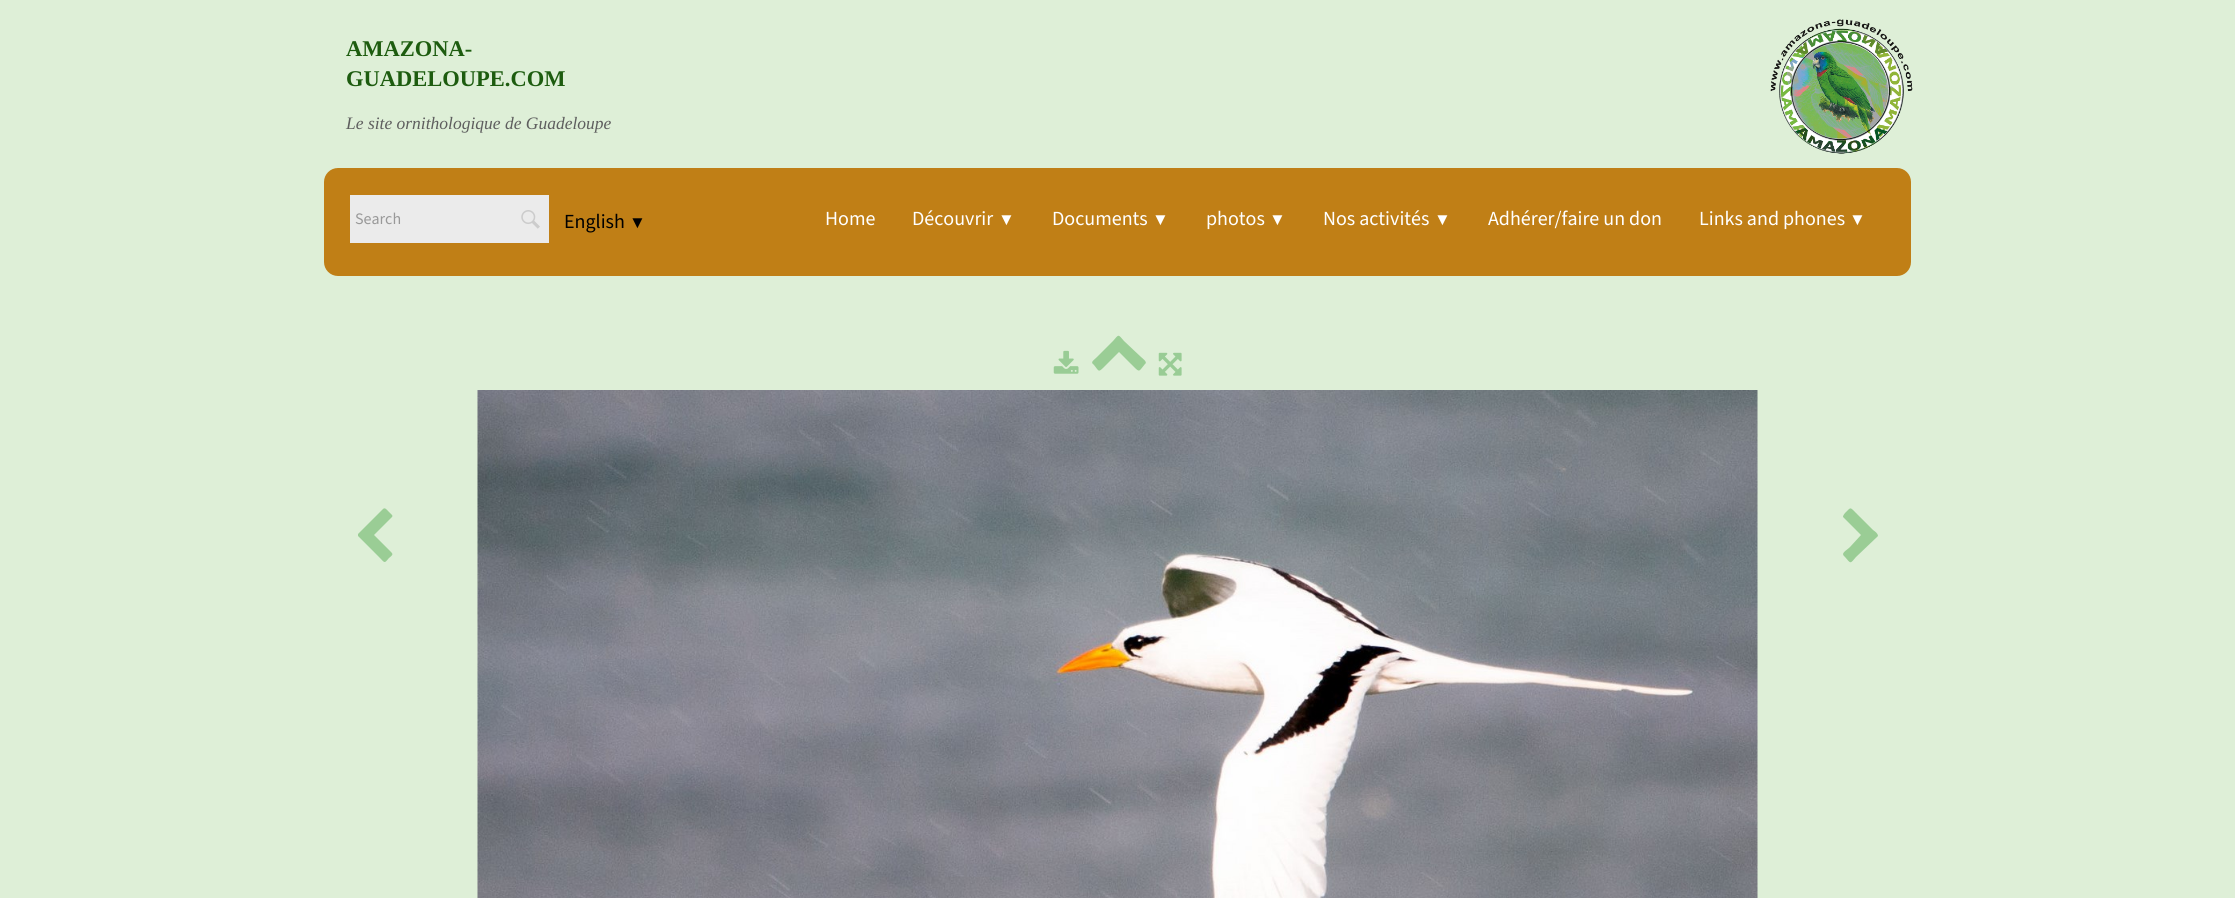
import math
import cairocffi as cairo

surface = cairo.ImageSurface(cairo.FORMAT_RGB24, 2235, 898)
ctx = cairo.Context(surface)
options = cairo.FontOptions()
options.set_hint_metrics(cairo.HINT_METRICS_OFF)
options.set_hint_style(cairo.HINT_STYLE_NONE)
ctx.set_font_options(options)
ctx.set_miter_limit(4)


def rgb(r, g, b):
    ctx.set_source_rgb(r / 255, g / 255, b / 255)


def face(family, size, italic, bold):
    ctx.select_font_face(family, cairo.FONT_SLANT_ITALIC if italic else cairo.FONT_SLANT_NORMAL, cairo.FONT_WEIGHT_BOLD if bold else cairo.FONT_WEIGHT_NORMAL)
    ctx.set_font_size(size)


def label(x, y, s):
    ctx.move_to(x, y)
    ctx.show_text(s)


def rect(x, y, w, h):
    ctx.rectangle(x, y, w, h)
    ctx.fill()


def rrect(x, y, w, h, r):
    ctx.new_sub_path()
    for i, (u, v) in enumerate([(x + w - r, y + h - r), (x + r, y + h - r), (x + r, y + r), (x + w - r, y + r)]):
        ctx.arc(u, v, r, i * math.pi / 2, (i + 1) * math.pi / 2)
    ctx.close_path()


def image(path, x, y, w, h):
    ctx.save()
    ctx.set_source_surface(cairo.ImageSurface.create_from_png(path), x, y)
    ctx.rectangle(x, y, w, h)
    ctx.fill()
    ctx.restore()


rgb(222, 239, 215)
ctx.paint()
image('image0.png', 1770, 19, 143, 135)
face('Liberation Serif', 22.5, 0, 1)
rgb(29, 92, 15)
label(346, 56, 'AMAZONA-')
label(346, 86, 'GUADELOUPE.COM')
face('Liberation Serif', 17.5, 1, 0)
rgb(94, 94, 94)
label(346, 129, 'Le site ornithologique de Guadeloupe')
rgb(192, 127, 22)
rrect(324, 168, 1587, 108, 14)
ctx.fill()
rgb(235, 235, 235)
rect(350, 195, 199, 48)
image('image1.png', 521, 210, 19, 19)
face('Source Sans 3 ExtraLight', 16, 0, 0)
rgb(153, 153, 153)
label(355, 224, 'Search')
face('Source Sans 3 ExtraLight', 20, 0, 0)
rgb(0, 0, 0)
label(564, 228, 'English')
face('Liberation Serif', 17, 0, 0)
label(629, 228, '▼')
face('Source Sans 3 ExtraLight', 20, 0, 0)
rgb(255, 255, 255)
label(825, 225, 'Home')
label(912, 225, 'Découvrir')
face('Liberation Serif', 17, 0, 0)
label(998, 225, '▼')
face('Source Sans 3 ExtraLight', 20, 0, 0)
label(1052, 225, 'Documents')
face('Liberation Serif', 17, 0, 0)
label(1152, 225, '▼')
face('Source Sans 3 ExtraLight', 20, 0, 0)
label(1206, 225, 'photos')
face('Liberation Serif', 17, 0, 0)
label(1269, 225, '▼')
face('Source Sans 3 ExtraLight', 20, 0, 0)
label(1323, 225, 'Nos activités')
face('Liberation Serif', 17, 0, 0)
label(1434, 225, '▼')
face('Source Sans 3 ExtraLight', 20, 0, 0)
label(1488, 225, 'Adhérer/faire un don')
label(1699, 225, 'Links and phones')
face('Liberation Serif', 17, 0, 0)
label(1849, 225, '▼')
image('image2.png', 1053, 350, 26, 24)
rgb(154, 205, 149)
ctx.new_path()
ctx.move_to(1145, 364)
ctx.curve_to(1139, 371, 1140, 373, 1134, 367)
ctx.line_to(1119, 352)
ctx.line_to(1104, 367)
ctx.curve_to(1098, 373, 1099, 371, 1094, 365)
ctx.curve_to(1090, 362, 1093, 361, 1097, 357)
ctx.line_to(1113, 341)
ctx.curve_to(1119, 334, 1118, 334, 1124, 341)
ctx.line_to(1141, 357)
ctx.curve_to(1142, 358, 1148, 362, 1145, 364)
ctx.close_path()
ctx.fill()
image('image3.png', 1158, 352, 24, 24)
ctx.new_path()
ctx.move_to(392, 517)
ctx.line_to(374, 535)
ctx.line_to(389, 550)
ctx.curve_to(393, 554, 394, 554, 389, 558)
ctx.curve_to(384, 564, 385, 563, 379, 557)
ctx.line_to(358, 536)
ctx.line_to(358, 534)
ctx.line_to(383, 509)
ctx.curve_to(385, 507, 387, 510, 388, 511)
ctx.line_to(392, 515)
ctx.curve_to(393, 516, 392, 517, 392, 517)
ctx.close_path()
ctx.fill()
image('image4.png', 477, 390, 1281, 508)
ctx.new_path()
ctx.move_to(1877, 537)
ctx.line_to(1856, 557)
ctx.curve_to(1850, 564, 1851, 564, 1845, 557)
ctx.curve_to(1840, 553, 1846, 551, 1850, 547)
ctx.line_to(1861, 535)
ctx.line_to(1843, 517)
ctx.curve_to(1843, 515, 1845, 513, 1846, 512)
ctx.curve_to(1851, 507, 1850, 507, 1856, 513)
ctx.line_to(1873, 530)
ctx.curve_to(1873, 530, 1878, 533, 1878, 536)
ctx.close_path()
ctx.fill()
surface.write_to_png('render.png')
